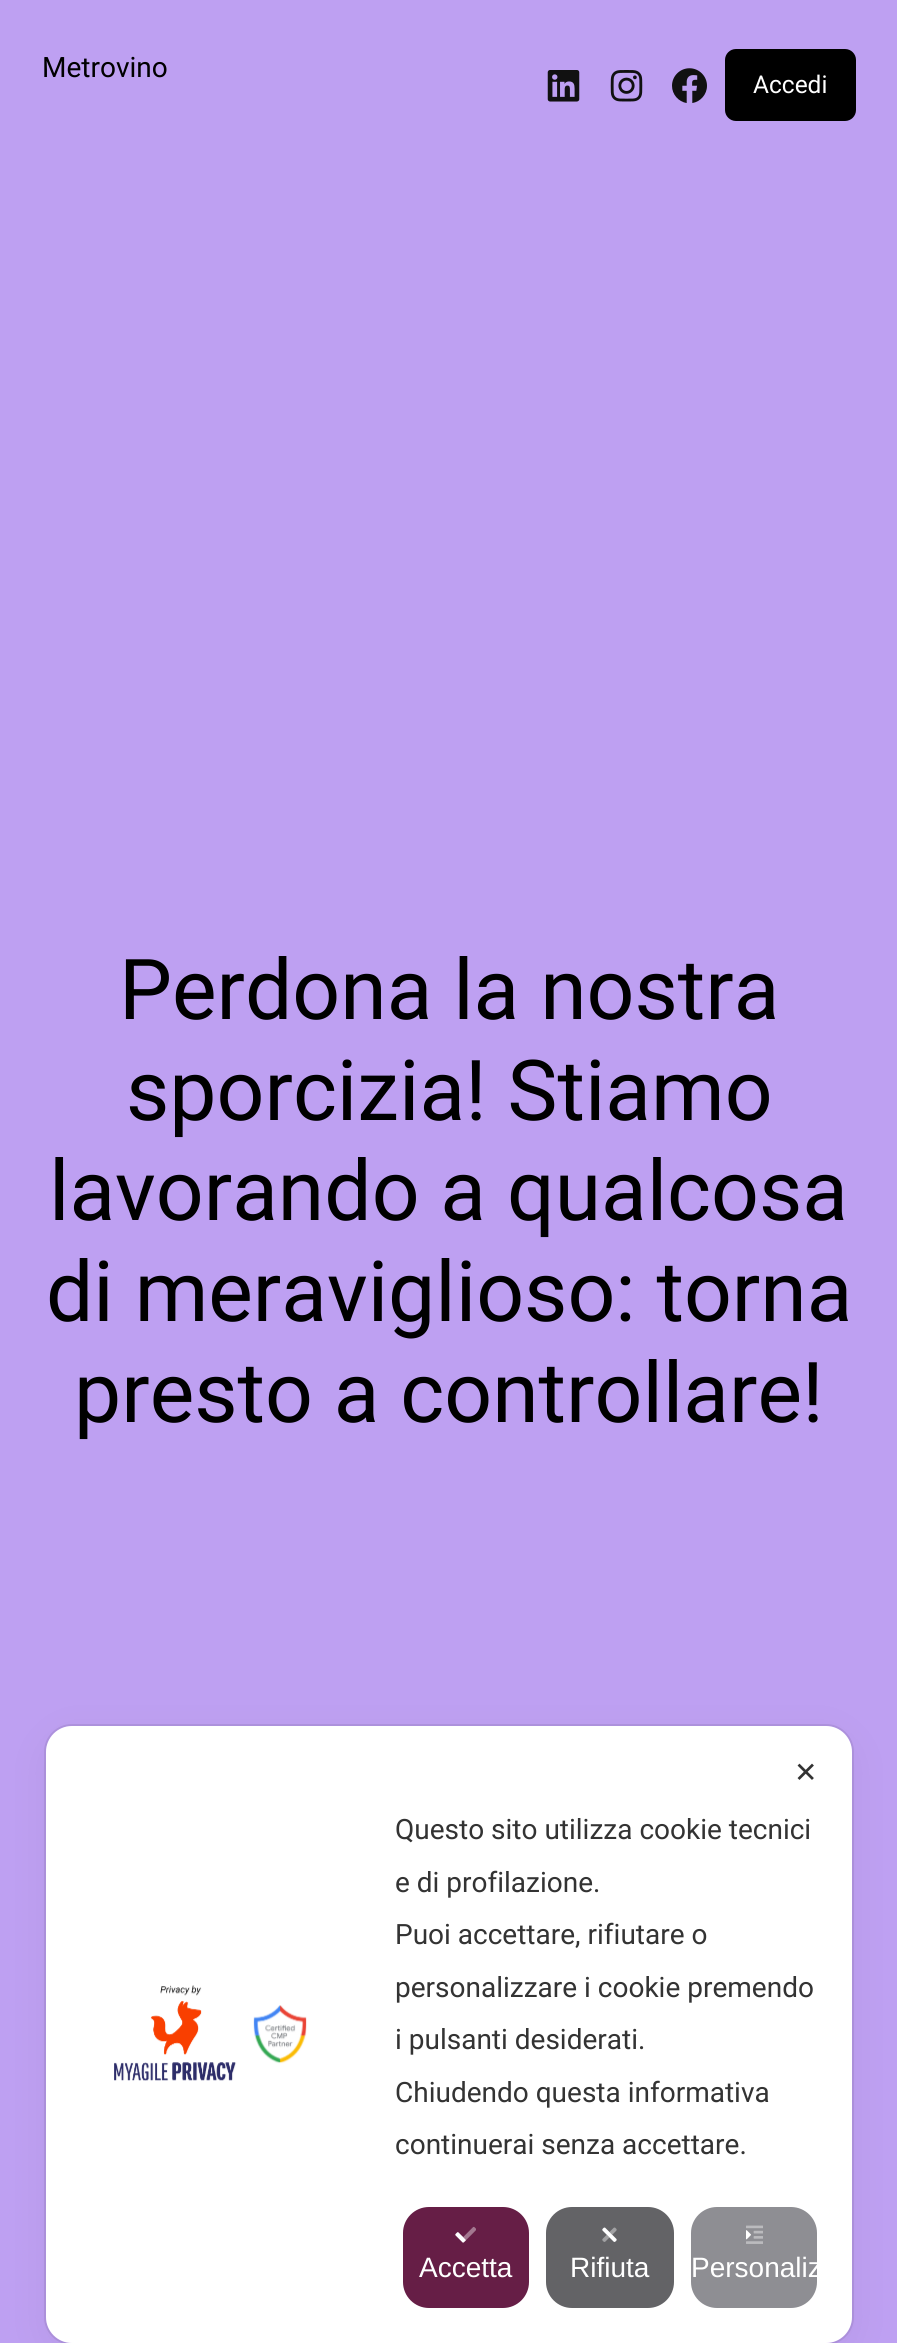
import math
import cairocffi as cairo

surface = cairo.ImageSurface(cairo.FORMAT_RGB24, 897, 2343)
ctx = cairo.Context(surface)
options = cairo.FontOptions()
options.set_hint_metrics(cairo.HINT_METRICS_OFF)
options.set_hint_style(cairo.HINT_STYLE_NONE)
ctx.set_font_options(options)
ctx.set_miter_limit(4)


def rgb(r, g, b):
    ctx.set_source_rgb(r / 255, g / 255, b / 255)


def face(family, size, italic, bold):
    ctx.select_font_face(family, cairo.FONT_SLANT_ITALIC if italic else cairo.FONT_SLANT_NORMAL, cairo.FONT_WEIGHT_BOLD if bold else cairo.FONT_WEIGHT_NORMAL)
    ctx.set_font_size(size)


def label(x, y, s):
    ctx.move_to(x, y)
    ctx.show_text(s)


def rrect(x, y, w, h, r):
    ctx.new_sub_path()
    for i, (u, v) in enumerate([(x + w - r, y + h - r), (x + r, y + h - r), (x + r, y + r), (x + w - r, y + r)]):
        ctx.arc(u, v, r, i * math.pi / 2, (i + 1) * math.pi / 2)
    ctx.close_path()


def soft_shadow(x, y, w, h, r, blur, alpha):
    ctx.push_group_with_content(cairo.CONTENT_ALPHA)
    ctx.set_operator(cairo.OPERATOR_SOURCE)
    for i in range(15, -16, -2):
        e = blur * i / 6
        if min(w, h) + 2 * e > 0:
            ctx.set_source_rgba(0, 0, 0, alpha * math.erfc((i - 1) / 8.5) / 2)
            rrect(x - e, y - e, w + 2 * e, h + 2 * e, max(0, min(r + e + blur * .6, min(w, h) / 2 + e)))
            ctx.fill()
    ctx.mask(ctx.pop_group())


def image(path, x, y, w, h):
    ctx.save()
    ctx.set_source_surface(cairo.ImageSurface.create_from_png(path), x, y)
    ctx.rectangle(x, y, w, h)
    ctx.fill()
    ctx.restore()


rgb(190, 160, 242)
ctx.paint()
face('Roboto', 28, 0, 0)
rgb(0, 0, 0)
label(42, 77, 'Metrovino')
image('image0.png', 547, 70, 33, 32)
image('image1.png', 610, 70, 33, 32)
image('image2.png', 672, 68, 35, 35)
rrect(725, 49, 131, 72, 11)
ctx.fill()
face('Roboto', 24.5, 0, 0)
rgb(255, 255, 255)
label(753, 93, 'Accedi')
face('Roboto', 84, 0, 0)
rgb(0, 0, 0)
label(119, 1019, 'Perdona la nostra')
label(126, 1120, 'sporcizia! Stiamo')
label(49, 1220, 'lavorando a qualcosa')
label(46, 1321, 'di meraviglioso: torna')
label(74, 1422, 'presto a controllare!')
rrect(45, 1725, 808, 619, 27)
rgb(175, 147, 223)
ctx.stroke()
rgb(0, 0, 0)
soft_shadow(46, 1736, 806, 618, 26, 21, 0.05)
rgb(255, 255, 255)
rrect(46, 1726, 806, 617, 26)
ctx.fill()
face('DejaVu Sans', 28, 0, 0)
rgb(51, 51, 51)
label(794, 1782, '✕')
image('image3.png', 114, 1985, 193, 96)
face('Roboto', 28, 0, 0)
label(395, 1839, 'Questo sito utilizza cookie tecnici')
label(395, 1892, 'e di profilazione.')
label(395, 1944, 'Puoi accettare, rifiutare o')
label(395, 1997, 'personalizzare i cookie premendo')
label(395, 2049, 'i pulsanti desiderati.')
label(395, 2102, 'Chiudendo questa informativa')
label(395, 2154, 'continuerai senza accettare.')
rgb(102, 30, 70)
rrect(403, 2207, 126, 101, 26)
ctx.fill()
image('image4.png', 455, 2226, 21, 17)
face('Liberation Sans', 28, 0, 0)
rgb(255, 255, 255)
label(419, 2277, 'Accetta')
rgb(99, 99, 102)
rrect(546, 2207, 128, 101, 26)
ctx.fill()
image('image5.png', 602, 2227, 15, 15)
rgb(255, 255, 255)
label(570, 2277, 'Rifiuta')
rgb(142, 142, 147)
rrect(691, 2207, 126, 101, 26)
ctx.fill()
image('image6.png', 746, 2225, 17, 19)
rgb(255, 255, 255)
label(691, 2277, 'Personaliz')
surface.write_to_png('render.png')
